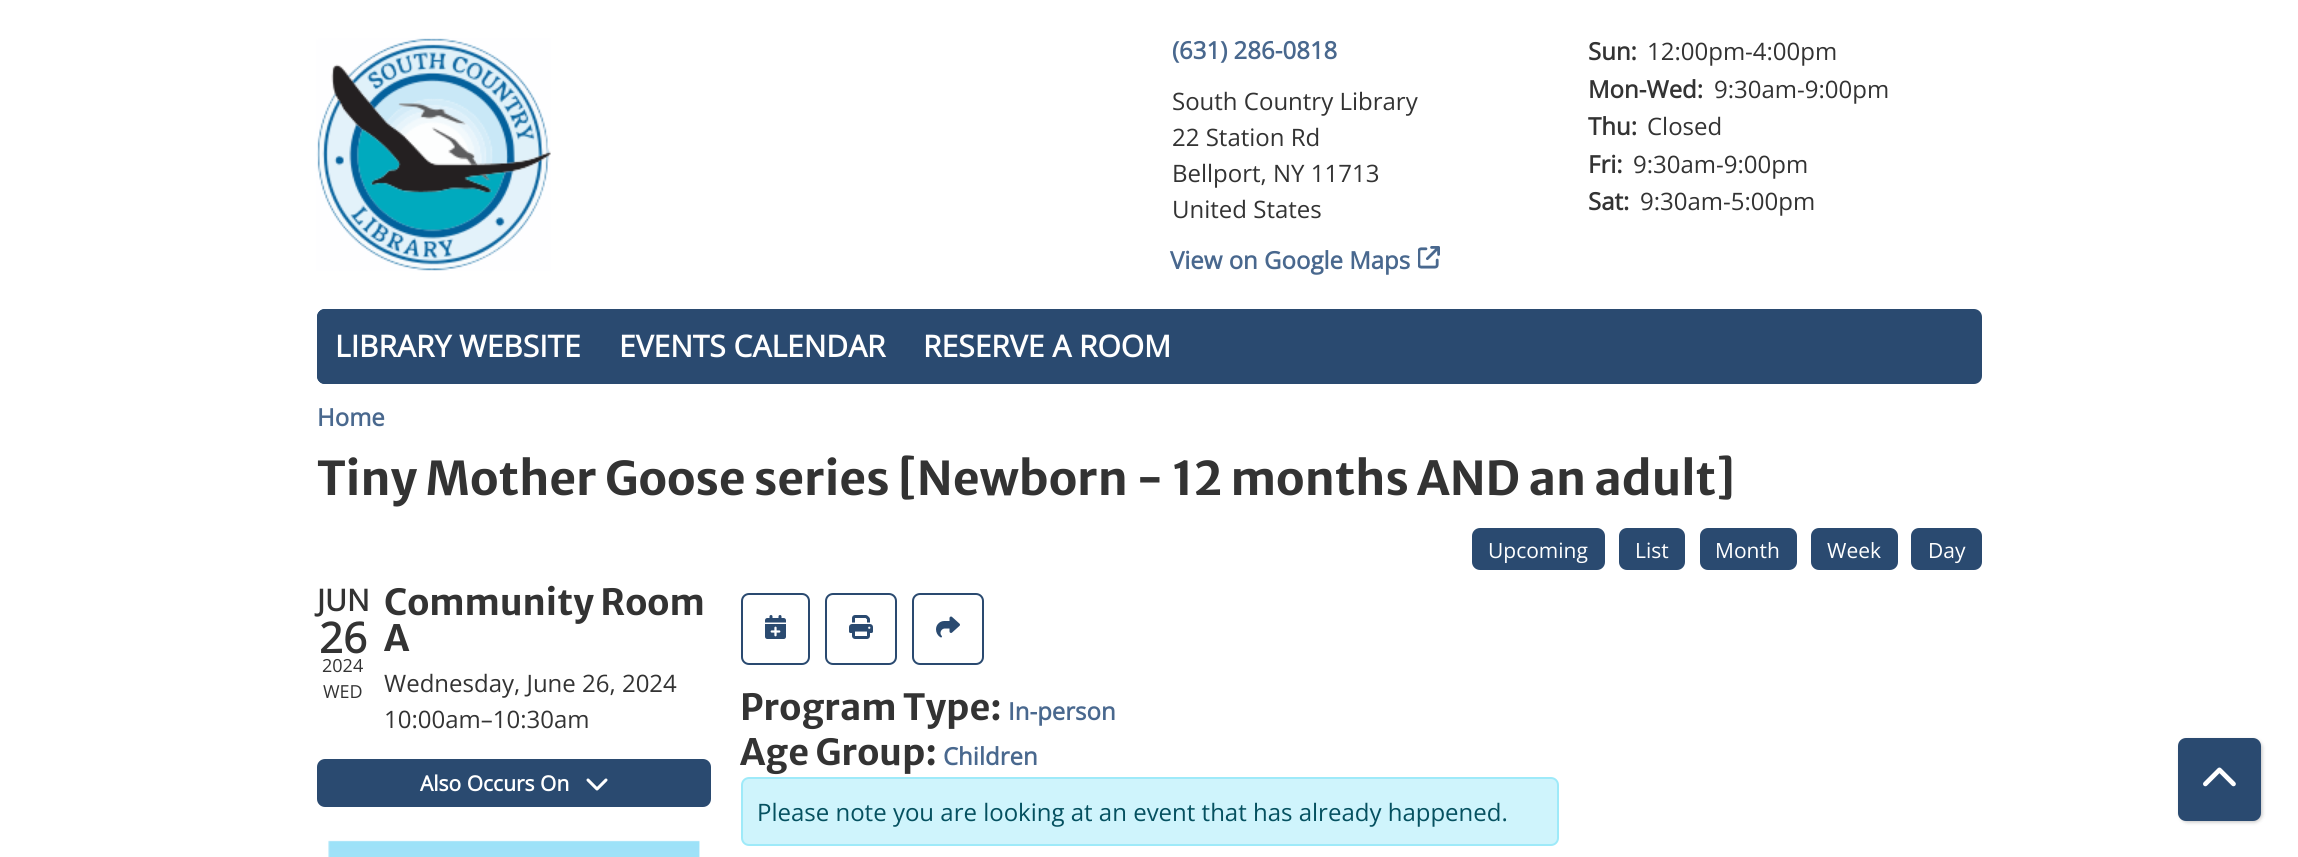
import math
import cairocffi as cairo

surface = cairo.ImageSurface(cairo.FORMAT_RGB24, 2298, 857)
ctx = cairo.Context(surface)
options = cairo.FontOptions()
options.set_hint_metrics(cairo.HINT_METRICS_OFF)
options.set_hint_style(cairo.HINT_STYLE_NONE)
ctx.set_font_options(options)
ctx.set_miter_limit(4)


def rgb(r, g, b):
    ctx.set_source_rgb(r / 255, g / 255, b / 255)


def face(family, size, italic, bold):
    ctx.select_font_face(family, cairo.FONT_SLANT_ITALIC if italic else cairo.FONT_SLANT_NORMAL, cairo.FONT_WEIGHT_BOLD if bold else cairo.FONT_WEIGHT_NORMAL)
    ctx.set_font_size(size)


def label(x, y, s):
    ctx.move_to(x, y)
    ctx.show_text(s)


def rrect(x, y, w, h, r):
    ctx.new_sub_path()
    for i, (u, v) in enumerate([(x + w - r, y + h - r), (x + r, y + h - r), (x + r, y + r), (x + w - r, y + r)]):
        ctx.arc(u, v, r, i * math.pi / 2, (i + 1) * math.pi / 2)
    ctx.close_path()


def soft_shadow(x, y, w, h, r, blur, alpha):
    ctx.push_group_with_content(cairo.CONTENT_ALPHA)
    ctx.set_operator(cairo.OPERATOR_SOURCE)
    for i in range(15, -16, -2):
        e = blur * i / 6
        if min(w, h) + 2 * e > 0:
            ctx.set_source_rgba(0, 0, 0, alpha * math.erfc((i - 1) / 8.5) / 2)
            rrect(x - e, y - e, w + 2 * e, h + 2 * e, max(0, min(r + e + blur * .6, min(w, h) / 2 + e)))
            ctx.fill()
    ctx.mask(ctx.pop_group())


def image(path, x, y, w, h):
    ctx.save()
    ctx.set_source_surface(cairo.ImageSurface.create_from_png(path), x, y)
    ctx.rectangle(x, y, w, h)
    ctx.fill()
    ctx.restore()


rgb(255, 255, 255)
ctx.paint()
image('image0.png', 316, 38, 235, 233)
face('Open Sans', 24, 0, 1)
rgb(73, 104, 142)
label(1172, 59, '(631) 286-0818')
face('Open Sans', 24, 0, 0)
rgb(51, 51, 51)
label(1172, 110, 'South Country Library')
label(1172, 146, '22 Station Rd')
label(1172, 182, 'Bellport, NY 11713')
label(1172, 218, 'United States')
face('Open Sans', 24, 0, 1)
rgb(73, 104, 142)
label(1170, 269, 'View on Google Maps')
image('image1.png', 1418, 246, 22, 23)
rgb(51, 51, 51)
label(1588, 60, 'Sun:')
face('Open Sans', 24, 0, 0)
label(1647, 60, '12:00pm-4:00pm')
face('Open Sans', 24, 0, 1)
label(1588, 98, 'Mon-Wed:')
face('Open Sans', 24, 0, 0)
label(1714, 98, '9:30am-9:00pm')
face('Open Sans', 24, 0, 1)
label(1588, 135, 'Thu:')
face('Open Sans', 24, 0, 0)
label(1647, 135, 'Closed')
face('Open Sans', 24, 0, 1)
label(1588, 173, 'Fri:')
face('Open Sans', 24, 0, 0)
label(1633, 173, '9:30am-9:00pm')
face('Open Sans', 24, 0, 1)
label(1588, 210, 'Sat:')
face('Open Sans', 24, 0, 0)
label(1640, 210, '9:30am-5:00pm')
rgb(42, 74, 112)
rrect(317, 309, 1665, 75, 8)
ctx.fill()
ctx.new_path()
ctx.move_to(325, 309)
ctx.line_to(600, 309)
ctx.line_to(600, 384)
ctx.line_to(325, 384)
ctx.curve_to(320.5, 384, 317, 380.5, 317, 376)
ctx.line_to(317, 317)
ctx.curve_to(317, 312.5, 320.5, 309, 325, 309)
ctx.close_path()
ctx.fill()
face('Open Sans', 30, 0, 1)
rgb(255, 255, 255)
label(335, 357, 'LIBRARY WEBSITE')
label(619, 357, 'EVENTS CALENDAR')
label(923, 357, 'RESERVE A ROOM')
face('Open Sans', 24, 0, 1)
rgb(73, 104, 142)
label(317, 426, 'Home')
face('Merriweather Sans', 46.5, 0, 1)
rgb(51, 51, 51)
label(317, 495, 'Tiny Mother Goose series [Newborn - 12 months AND an adult]')
rgb(42, 74, 112)
rrect(1473, 529, 131, 40, 7)
ctx.fill_preserve()
ctx.stroke()
face('Open Sans', 21, 0, 0)
rgb(255, 255, 255)
label(1488, 558, 'Upcoming')
rgb(42, 74, 112)
rrect(1620, 529, 64, 40, 7)
ctx.fill_preserve()
ctx.stroke()
rgb(255, 255, 255)
label(1635, 558, 'List')
rgb(42, 74, 112)
rrect(1701, 529, 95, 40, 7)
ctx.fill_preserve()
ctx.stroke()
rgb(255, 255, 255)
label(1715, 558, 'Month')
rgb(42, 74, 112)
rrect(1812, 529, 85, 40, 7)
ctx.fill_preserve()
ctx.stroke()
rgb(255, 255, 255)
label(1827, 558, 'Week')
rgb(42, 74, 112)
rrect(1912, 529, 69, 40, 7)
ctx.fill_preserve()
ctx.stroke()
rgb(255, 255, 255)
label(1928, 558, 'Day')
face('Open Sans', 30, 0, 1)
rgb(51, 51, 51)
label(317, 611, 'JUN')
face('Open Sans', 42, 0, 1)
label(319, 653, '26')
face('Open Sans', 18, 0, 0)
label(322, 672, '2024')
label(323, 698, 'WED')
face('Merriweather Sans', 36, 0, 1)
label(384, 615, 'Community Room')
label(384, 651, 'A')
face('Open Sans', 24, 0, 0)
label(384, 692, 'Wednesday, June 26, 2024')
label(384, 728, '10:00am–10:30am')
rgb(42, 74, 112)
rrect(318, 760, 392, 46, 7)
ctx.fill_preserve()
ctx.stroke()
face('Open Sans', 21, 0, 1)
rgb(255, 255, 255)
label(420, 791, 'Also Occurs On')
image('image2.png', 586, 778, 22, 13)
image('image3.png', 328, 840, 372, 17)
rrect(742, 594, 67, 70, 7)
rgb(42, 74, 112)
ctx.stroke()
image('image4.png', 765, 615, 21, 24)
rrect(826, 594, 70, 70, 7)
ctx.stroke()
image('image5.png', 849, 615, 24, 24)
rrect(913, 594, 70, 70, 7)
ctx.stroke()
image('image6.png', 936, 616, 24, 22)
face('Merriweather Sans', 36, 0, 1)
rgb(51, 51, 51)
label(740, 720, 'Program Type:')
face('Open Sans', 24, 0, 1)
rgb(73, 104, 142)
label(1008, 720, 'In-person')
face('Merriweather Sans', 36, 0, 1)
rgb(51, 51, 51)
label(740, 765, 'Age Group:')
face('Open Sans', 24, 0, 1)
rgb(73, 104, 142)
label(943, 765, 'Children')
rgb(207, 244, 252)
rrect(742, 778, 816, 67, 7)
ctx.fill_preserve()
rgb(158, 234, 249)
ctx.stroke()
face('Open Sans', 24, 0, 0)
rgb(5, 81, 96)
label(757, 821, 'Please note you are looking at an event that has already happened.')
rgb(0, 0, 0)
soft_shadow(2180, 740, 82, 82, 8, 2, 0.25)
rgb(42, 74, 112)
rrect(2179, 739, 81, 81, 7)
ctx.fill_preserve()
ctx.stroke()
image('image7.png', 2203, 767, 33, 20)
surface.write_to_png('render.png')
